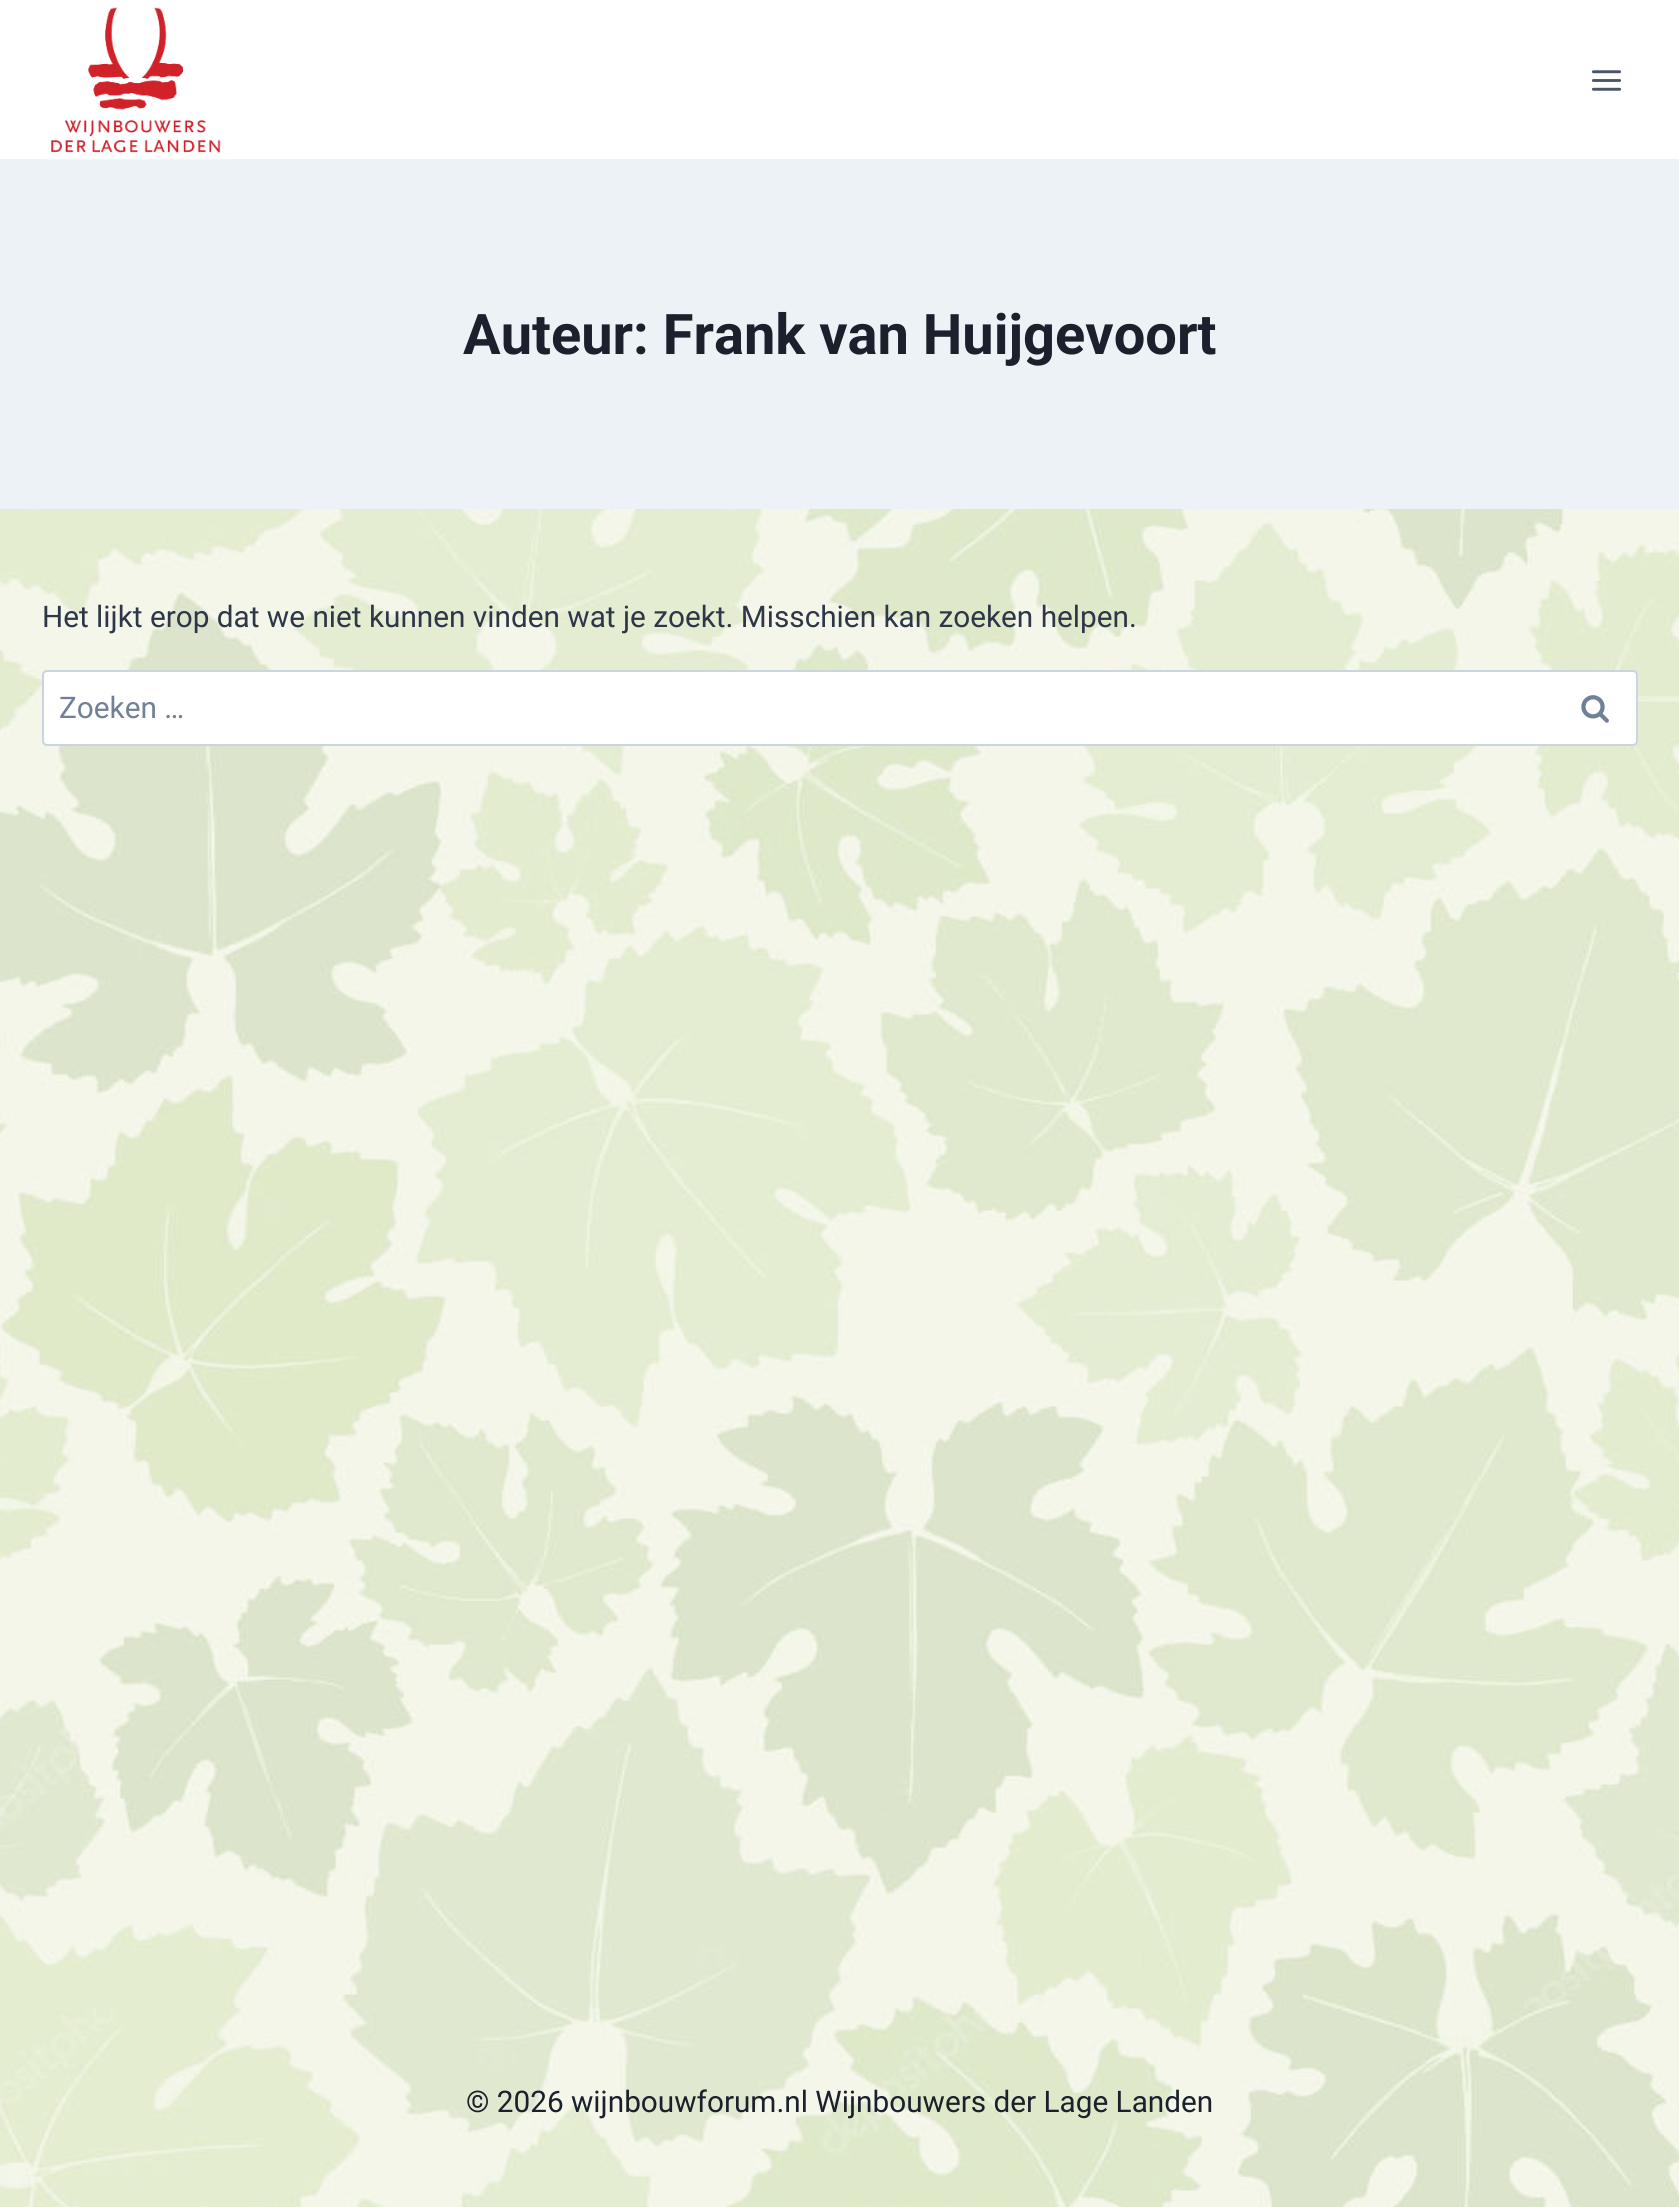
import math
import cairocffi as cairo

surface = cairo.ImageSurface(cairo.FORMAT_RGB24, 1679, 2207)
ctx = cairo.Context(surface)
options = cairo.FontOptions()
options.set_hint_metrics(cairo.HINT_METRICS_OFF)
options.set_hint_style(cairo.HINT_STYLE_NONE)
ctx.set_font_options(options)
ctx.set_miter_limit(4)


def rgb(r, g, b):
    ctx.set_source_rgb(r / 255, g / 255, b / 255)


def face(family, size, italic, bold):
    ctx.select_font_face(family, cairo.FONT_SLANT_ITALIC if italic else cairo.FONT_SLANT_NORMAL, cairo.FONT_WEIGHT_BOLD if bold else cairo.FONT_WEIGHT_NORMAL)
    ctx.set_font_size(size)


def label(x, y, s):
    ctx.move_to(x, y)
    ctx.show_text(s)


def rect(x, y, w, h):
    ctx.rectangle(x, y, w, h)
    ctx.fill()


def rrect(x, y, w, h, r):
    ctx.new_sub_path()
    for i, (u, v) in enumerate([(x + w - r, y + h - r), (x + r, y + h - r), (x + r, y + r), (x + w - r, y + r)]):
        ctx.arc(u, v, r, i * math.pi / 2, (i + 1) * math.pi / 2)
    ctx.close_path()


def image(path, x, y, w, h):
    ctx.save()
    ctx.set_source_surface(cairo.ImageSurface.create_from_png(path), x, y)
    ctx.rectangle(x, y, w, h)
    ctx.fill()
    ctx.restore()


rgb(255, 255, 255)
ctx.paint()
image('image0.png', 0, 509, 1679, 1698)
rgb(237, 242, 247)
rect(0, 159, 1679, 350)
image('image1.png', 42, 7, 189, 153)
image('image2.png', 1591, 70, 31, 21)
face('Roboto', 56, 0, 1)
rgb(26, 32, 44)
label(463, 354, 'Auteur: Frank van Huijgevoort')
face('Roboto', 29.75, 0, 0)
rgb(45, 55, 72)
label(42, 627, 'Het lijkt erop dat we niet kunnen vinden wat je zoekt. Misschien kan zoeken helpen.')
rgb(255, 255, 255)
rrect(43, 671, 1594, 74, 4)
ctx.fill_preserve()
rgb(203, 213, 224)
ctx.stroke()
rgb(113, 128, 150)
label(59, 718, 'Zoeken …')
image('image3.png', 1581, 695, 28, 28)
rgb(26, 32, 44)
label(466, 2112, '© 2026 wijnbouwforum.nl Wijnbouwers der Lage Landen')
surface.write_to_png('render.png')
